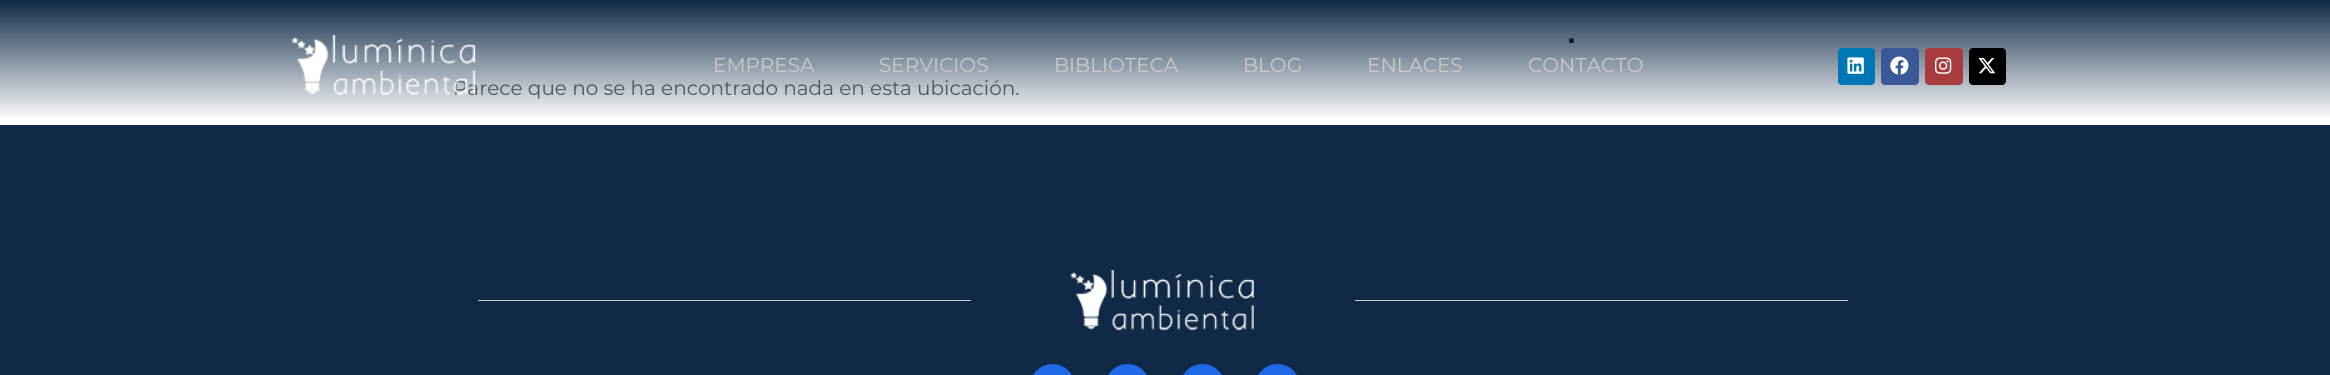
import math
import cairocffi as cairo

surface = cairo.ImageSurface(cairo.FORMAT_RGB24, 2330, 375)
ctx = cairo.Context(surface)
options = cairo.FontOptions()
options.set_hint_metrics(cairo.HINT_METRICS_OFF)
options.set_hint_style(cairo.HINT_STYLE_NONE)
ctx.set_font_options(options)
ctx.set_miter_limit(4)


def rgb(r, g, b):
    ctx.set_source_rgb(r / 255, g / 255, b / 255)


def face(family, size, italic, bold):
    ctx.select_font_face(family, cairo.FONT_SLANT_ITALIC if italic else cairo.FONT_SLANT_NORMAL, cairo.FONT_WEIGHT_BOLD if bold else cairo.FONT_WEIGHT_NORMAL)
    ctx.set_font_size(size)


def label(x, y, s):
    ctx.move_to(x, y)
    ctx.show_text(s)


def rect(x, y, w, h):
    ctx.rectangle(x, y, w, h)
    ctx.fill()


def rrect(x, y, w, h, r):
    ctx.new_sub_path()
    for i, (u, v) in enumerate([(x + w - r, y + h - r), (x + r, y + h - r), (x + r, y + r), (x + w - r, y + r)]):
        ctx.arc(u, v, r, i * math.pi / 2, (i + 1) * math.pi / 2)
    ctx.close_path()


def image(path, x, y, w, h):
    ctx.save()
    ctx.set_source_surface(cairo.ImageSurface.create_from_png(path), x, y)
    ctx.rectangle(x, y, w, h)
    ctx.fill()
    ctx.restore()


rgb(255, 255, 255)
ctx.paint()
face('Michroma', 50, 0, 0)
rgb(0, 0, 0)
label(1566, 43, '.')
face('Montserrat', 20, 0, 0)
rgb(101, 101, 101)
label(453, 95, 'Parece que no se ha encontrado nada en esta ubicación.')
gradient = cairo.LinearGradient(1165, 0, 1165, 121)
gradient.add_color_stop_rgba(0, 0.059, 0.161, 0.275, 1)
gradient.add_color_stop_rgba(1, 0.059, 0.161, 0.275, 0)
ctx.set_source(gradient)
rect(0, 0, 2330, 118)
image('image0.png', 291, 35, 185, 61)
rgb(202, 202, 202)
label(713, 72, 'EMPRESA')
label(879, 72, 'SERVICIOS')
label(1054, 72, 'BIBLIOTECA')
label(1243, 72, 'BLOG')
label(1367, 72, 'ENLACES')
label(1528, 72, 'CONTACTO')
rgb(0, 119, 181)
rrect(1838, 48, 37, 37, 4)
ctx.fill()
image('image1.png', 1847, 57, 17, 17)
rgb(59, 89, 152)
rrect(1881, 48, 38, 37, 4)
ctx.fill()
image('image2.png', 1890, 56, 19, 19)
rgb(168, 60, 60)
rrect(1925, 48, 38, 37, 4)
ctx.fill()
image('image3.png', 1934, 57, 18, 17)
rgb(0, 0, 0)
rrect(1969, 48, 37, 37, 4)
ctx.fill()
image('image4.png', 1978, 58, 18, 16)
rgb(15, 41, 70)
rect(0, 125, 2330, 250)
rgb(202, 202, 202)
rect(478, 300, 493, 1)
image('image5.png', 1070, 270, 184, 61)
rect(1355, 300, 493, 1)
rgb(29, 105, 231)
rrect(1030, 364, 45, 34, 22.5)
ctx.fill()
rrect(1105, 364, 45, 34, 22.5)
ctx.fill()
rrect(1180, 364, 45, 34, 22.5)
ctx.fill()
rrect(1255, 364, 45, 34, 22.5)
ctx.fill()
surface.write_to_png('render.png')
